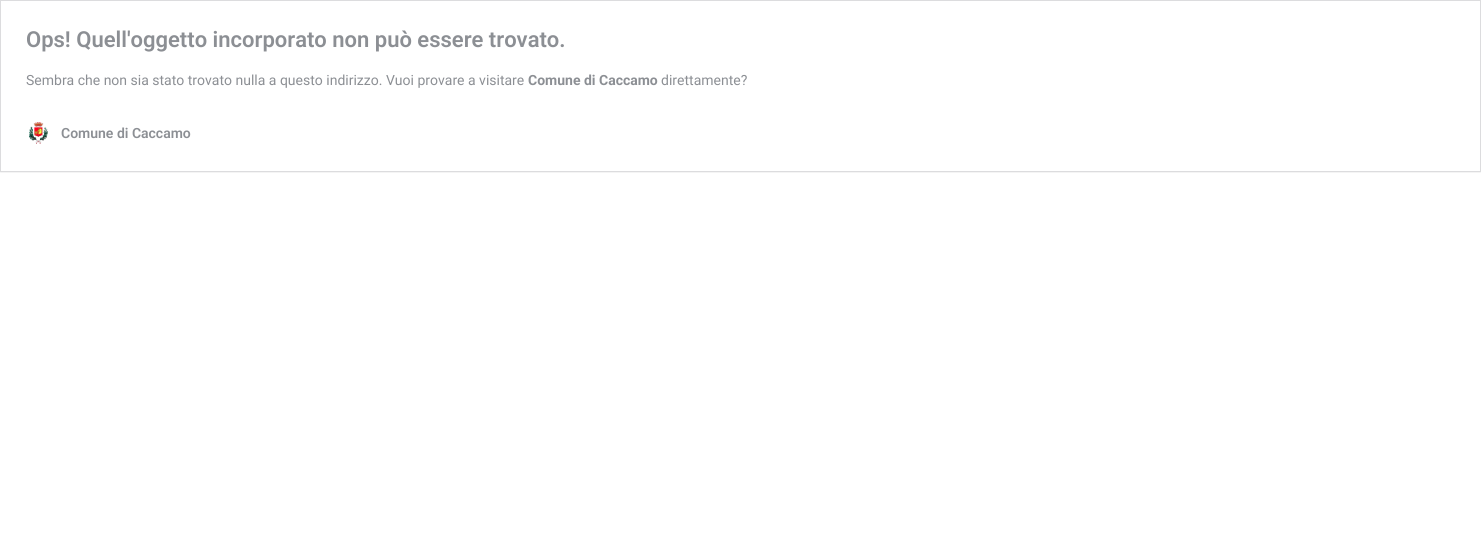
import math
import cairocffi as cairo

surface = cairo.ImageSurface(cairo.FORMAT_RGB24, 1481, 552)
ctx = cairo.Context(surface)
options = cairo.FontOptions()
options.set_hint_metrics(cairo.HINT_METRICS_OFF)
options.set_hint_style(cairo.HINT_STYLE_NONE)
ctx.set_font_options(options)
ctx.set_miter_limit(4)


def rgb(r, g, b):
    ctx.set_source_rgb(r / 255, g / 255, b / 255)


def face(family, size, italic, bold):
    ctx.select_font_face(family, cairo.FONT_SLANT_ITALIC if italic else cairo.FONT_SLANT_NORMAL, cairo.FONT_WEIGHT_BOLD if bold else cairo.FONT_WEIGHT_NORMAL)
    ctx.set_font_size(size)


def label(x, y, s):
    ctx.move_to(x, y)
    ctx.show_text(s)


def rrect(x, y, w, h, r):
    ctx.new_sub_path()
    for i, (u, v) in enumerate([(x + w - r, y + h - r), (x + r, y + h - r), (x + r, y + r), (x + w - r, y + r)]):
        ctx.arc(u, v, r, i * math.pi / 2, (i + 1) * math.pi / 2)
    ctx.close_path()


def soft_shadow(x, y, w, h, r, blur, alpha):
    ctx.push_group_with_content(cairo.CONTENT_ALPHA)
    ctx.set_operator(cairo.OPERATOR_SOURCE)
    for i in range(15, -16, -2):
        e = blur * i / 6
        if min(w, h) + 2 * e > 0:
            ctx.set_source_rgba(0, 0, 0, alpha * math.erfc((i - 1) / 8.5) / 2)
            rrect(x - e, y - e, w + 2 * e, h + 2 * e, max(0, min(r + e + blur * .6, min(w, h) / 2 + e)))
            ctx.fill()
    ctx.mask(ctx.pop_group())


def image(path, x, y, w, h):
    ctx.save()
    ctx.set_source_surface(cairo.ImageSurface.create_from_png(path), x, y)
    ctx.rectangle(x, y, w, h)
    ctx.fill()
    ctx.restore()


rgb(255, 255, 255)
ctx.paint()
ctx.save()
ctx.rectangle(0, 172, 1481, 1)
ctx.clip()
rgb(0, 0, 0)
soft_shadow(0, 1, 1481, 172, 0, 0.5, 0.05)
ctx.restore()
ctx.rectangle(0.5, 0.5, 1480, 171)
rgb(220, 220, 222)
ctx.set_line_width(1)
ctx.stroke()
face('Roboto SemiBold', 22, 0, 0)
rgb(140, 143, 148)
label(26, 47, 'Ops! Quell\'oggetto incorporato non può essere trovato.')
face('Roboto', 14, 0, 0)
label(26, 85, 'Sembra che non sia stato trovato nulla a questo indirizzo. Vuoi provare a visitare')
face('Roboto', 14, 0, 1)
label(528, 85, 'Comune di Caccamo')
face('Roboto', 14, 0, 0)
label(661, 85, 'direttamente?')
image('image0.png', 29, 122, 19, 22)
face('Roboto SemiBold', 14, 0, 0)
label(61, 138, 'Comune di Caccamo')
surface.write_to_png('render.png')
